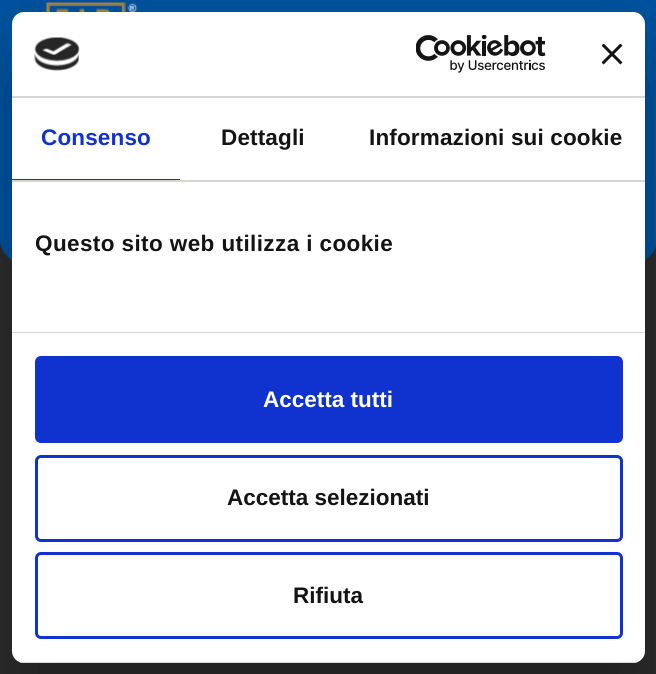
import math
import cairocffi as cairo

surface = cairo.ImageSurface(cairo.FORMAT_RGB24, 656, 674)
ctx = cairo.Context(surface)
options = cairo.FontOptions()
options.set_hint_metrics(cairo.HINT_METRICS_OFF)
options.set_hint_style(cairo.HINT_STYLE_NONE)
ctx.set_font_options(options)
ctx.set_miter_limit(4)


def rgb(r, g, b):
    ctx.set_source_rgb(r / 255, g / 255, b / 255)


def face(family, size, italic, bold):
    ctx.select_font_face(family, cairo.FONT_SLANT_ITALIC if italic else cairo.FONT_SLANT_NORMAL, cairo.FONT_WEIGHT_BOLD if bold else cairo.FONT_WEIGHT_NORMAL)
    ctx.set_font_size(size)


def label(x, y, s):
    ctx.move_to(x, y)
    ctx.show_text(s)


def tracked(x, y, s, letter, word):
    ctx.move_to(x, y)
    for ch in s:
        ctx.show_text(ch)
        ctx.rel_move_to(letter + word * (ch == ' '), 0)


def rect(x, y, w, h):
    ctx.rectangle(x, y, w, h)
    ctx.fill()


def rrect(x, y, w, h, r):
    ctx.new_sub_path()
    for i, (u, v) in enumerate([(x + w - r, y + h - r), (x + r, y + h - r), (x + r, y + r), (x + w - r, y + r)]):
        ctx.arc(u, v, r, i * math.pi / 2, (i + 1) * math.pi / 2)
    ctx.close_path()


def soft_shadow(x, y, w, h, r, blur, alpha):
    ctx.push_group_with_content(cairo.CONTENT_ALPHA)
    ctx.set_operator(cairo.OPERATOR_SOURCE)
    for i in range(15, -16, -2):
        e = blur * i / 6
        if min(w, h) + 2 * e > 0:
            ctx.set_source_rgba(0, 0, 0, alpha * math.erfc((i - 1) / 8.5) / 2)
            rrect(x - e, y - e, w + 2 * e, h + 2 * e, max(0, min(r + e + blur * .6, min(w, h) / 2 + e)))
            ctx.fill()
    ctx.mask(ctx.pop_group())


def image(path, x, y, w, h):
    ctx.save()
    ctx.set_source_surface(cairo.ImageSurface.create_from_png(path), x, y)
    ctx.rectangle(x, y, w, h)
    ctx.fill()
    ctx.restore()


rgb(45, 45, 45)
ctx.paint()
rgb(0, 83, 161)
ctx.new_path()
ctx.move_to(0, -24)
ctx.line_to(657, -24)
ctx.line_to(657, 239)
ctx.curve_to(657, 252.5, 646.5, 263, 633, 263)
ctx.line_to(24, 263)
ctx.curve_to(10.5, 263, 0, 252.5, 0, 239)
ctx.close_path()
ctx.fill()
image('image0.png', 46, 2, 92, 10)
rgb(0, 0, 0)
soft_shadow(12, 60, 633, 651, 12, 51, 0.3)
rgb(255, 255, 255)
rrect(12, 12, 633, 651, 12)
ctx.fill()
rgb(214, 214, 214)
rect(12, 96, 633, 2)
image('image1.png', 34, 37, 46, 34)
image('image2.png', 416, 35, 130, 38)
image('image3.png', 602, 44, 21, 21)
rect(12, 180, 633, 2)
rgb(16, 50, 207)
rect(12, 179, 168, 1)
face('Liberation Sans', 22.5, 0, 1)
tracked(41, 145, 'Consenso', 0.15, 0)
rgb(20, 20, 20)
tracked(221, 145, 'Dettagli', 0.15, 0)
tracked(369, 145, 'Informazioni sui cookie', 0.15, 0)
rgb(214, 214, 214)
rect(12, 332, 633, 1)
rgb(20, 20, 20)
tracked(35, 251, 'Questo sito web utilizza i cookie', 0.4, 0)
ctx.save()
rrect(12, 12, 633, 651, 12)
ctx.clip()
rgb(214, 214, 214)
rect(12, 662, 633, 1)
ctx.restore()
rgb(16, 50, 207)
rrect(36.5, 357.5, 585, 84, 4.5)
ctx.fill_preserve()
ctx.set_line_width(3)
ctx.stroke()
rgb(255, 255, 255)
label(263, 407, 'Accetta tutti')
rrect(36.5, 456.5, 585, 84, 4.5)
rgb(16, 50, 207)
ctx.stroke()
rgb(20, 20, 20)
label(227, 505, 'Accetta selezionati')
rrect(36.5, 553.5, 585, 84, 4.5)
rgb(16, 50, 207)
ctx.stroke()
rgb(20, 20, 20)
label(293, 603, 'Rifiuta')
surface.write_to_png('render.png')
